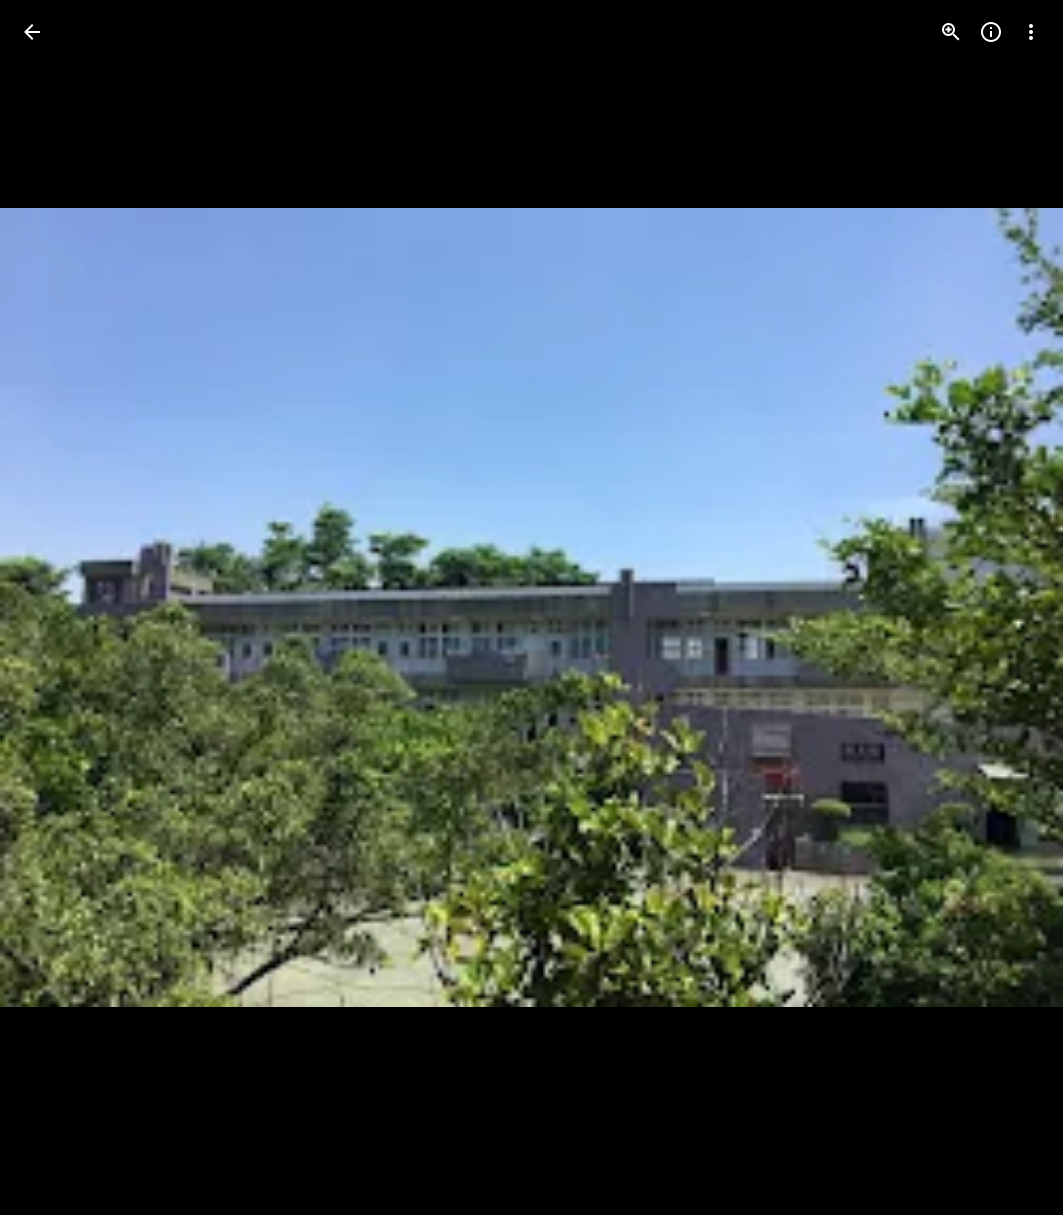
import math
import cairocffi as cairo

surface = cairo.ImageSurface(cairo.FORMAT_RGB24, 1063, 1215)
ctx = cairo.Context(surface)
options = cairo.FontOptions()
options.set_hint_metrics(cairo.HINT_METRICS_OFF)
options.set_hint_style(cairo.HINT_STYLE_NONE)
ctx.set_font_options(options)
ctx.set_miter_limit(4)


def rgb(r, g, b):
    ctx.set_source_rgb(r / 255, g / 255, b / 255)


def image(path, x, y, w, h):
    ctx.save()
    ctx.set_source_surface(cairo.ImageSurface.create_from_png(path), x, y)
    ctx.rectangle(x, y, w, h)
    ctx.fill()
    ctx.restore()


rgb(0, 0, 0)
ctx.paint()
image('image0.png', 24, 24, 16, 16)
image('image1.png', 942, 23, 18, 18)
image('image2.png', 981, 22, 20, 20)
image('image3.png', 1029, 24, 4, 16)
image('image4.png', 0, 208, 1063, 799)
surface.write_to_png('render.png')
